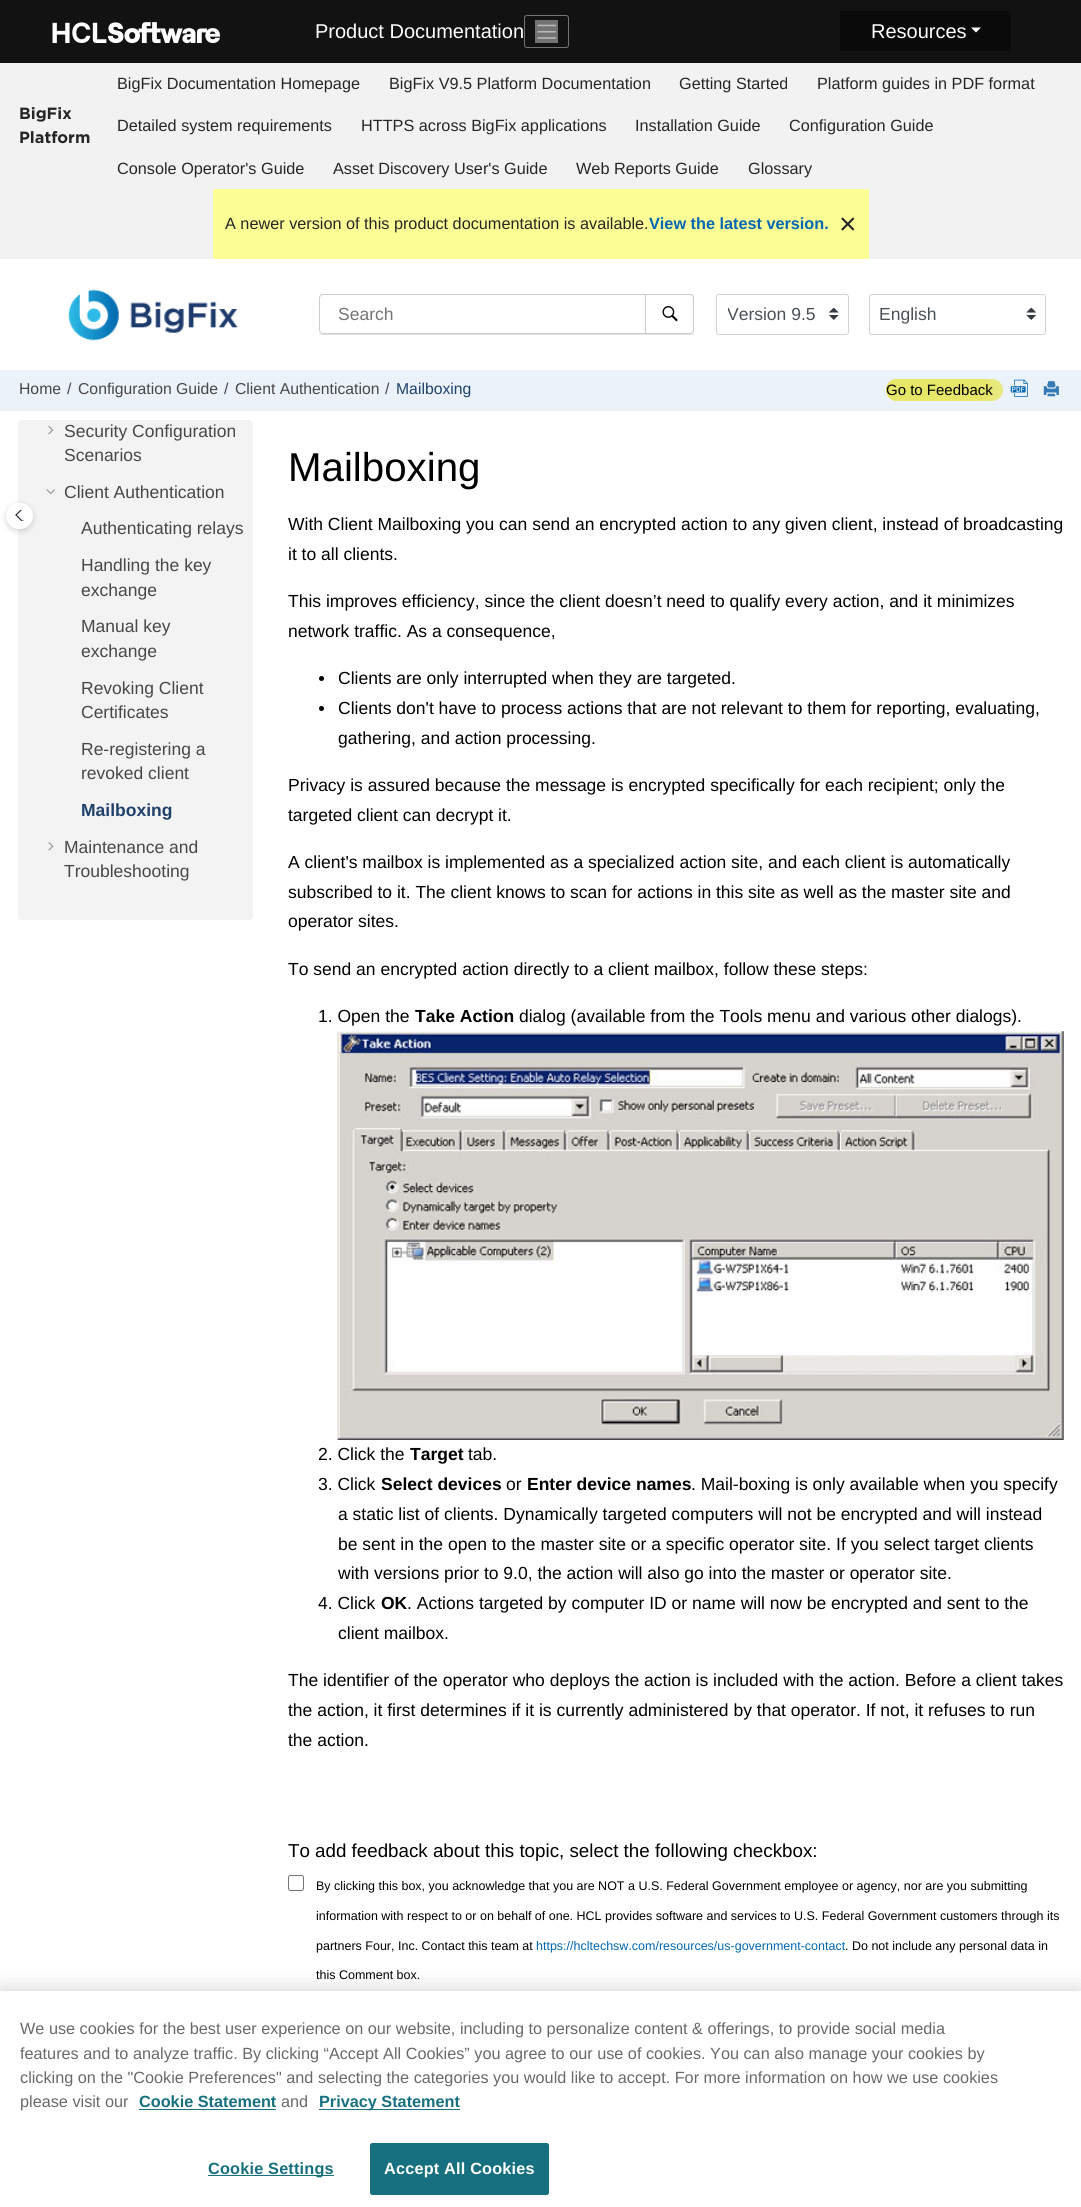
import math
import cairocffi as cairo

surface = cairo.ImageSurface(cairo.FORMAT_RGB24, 1081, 2207)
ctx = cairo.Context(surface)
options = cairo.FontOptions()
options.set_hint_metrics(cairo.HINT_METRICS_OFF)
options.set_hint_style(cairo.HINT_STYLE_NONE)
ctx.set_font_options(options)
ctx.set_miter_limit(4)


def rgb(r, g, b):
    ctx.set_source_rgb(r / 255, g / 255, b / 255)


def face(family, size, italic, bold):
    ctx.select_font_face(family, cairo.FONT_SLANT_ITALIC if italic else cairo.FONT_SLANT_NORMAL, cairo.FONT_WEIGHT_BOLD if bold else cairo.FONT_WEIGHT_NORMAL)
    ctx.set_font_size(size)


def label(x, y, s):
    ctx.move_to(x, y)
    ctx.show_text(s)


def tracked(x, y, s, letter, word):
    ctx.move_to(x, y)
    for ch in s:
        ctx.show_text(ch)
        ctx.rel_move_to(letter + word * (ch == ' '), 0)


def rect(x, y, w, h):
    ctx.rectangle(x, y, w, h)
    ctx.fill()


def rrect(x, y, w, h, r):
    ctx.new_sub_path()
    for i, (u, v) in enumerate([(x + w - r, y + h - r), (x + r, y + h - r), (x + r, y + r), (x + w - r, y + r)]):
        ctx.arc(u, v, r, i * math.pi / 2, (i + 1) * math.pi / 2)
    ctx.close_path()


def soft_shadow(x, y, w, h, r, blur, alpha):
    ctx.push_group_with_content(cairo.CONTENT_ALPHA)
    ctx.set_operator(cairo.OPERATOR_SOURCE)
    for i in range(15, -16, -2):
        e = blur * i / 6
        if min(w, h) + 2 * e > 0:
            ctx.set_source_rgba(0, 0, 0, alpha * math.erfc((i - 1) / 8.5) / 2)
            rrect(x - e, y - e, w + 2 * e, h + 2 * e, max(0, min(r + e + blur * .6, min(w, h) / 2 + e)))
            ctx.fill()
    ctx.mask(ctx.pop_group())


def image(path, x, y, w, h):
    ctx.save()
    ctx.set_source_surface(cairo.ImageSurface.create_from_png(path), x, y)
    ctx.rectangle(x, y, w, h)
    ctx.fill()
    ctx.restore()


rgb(255, 255, 255)
ctx.paint()
rgb(18, 18, 18)
rect(0, 0, 1081, 63)
image('image0.png', 52, 22, 168, 22)
face('Liberation Sans', 20, 0, 0)
rgb(255, 255, 255)
label(315, 38, 'Product Documentation')
rrect(524.5, 15.5, 44, 32, 2.5)
rgb(115, 115, 115)
ctx.set_line_width(1)
ctx.stroke()
rect(535, 20, 23, 23)
image('image1.png', 537, 24, 19, 15)
rgb(10, 10, 10)
rect(840, 11, 171, 40)
rgb(255, 255, 255)
label(871, 38, 'Resources')
ctx.new_path()
ctx.move_to(971, 27.5)
ctx.line_to(981, 27.5)
ctx.line_to(976, 32.5)
ctx.close_path()
ctx.fill()
rgb(242, 242, 242)
rect(0, 63, 1081, 196)
face('Gotham', 16.25, 0, 1)
rgb(38, 38, 38)
label(19, 119, 'BigFix')
label(19, 143, 'Platform')
face('Liberation Sans', 16.25, 0, 0)
label(117, 89, 'BigFix Documentation Homepage')
label(389, 89, 'BigFix V9.5 Platform Documentation')
label(679, 89, 'Getting Started')
label(817, 89, 'Platform guides in PDF format')
label(117, 131, 'Detailed system requirements')
label(361, 131, 'HTTPS across BigFix applications')
label(635, 131, 'Installation Guide')
label(789, 131, 'Configuration Guide')
label(117, 174, 'Console Operator\'s Guide')
label(333, 174, 'Asset Discovery User\'s Guide')
label(576, 174, 'Web Reports Guide')
label(748, 174, 'Glossary')
rgb(253, 253, 150)
rect(213, 189, 656, 70)
rgb(38, 38, 38)
label(225, 229, 'A newer version of this product documentation is available.')
face('Liberation Sans', 16.25, 0, 1)
rgb(0, 102, 179)
label(649, 229, 'View the latest version.')
face('Liberation Sans', 30, 0, 0)
rgb(38, 38, 38)
label(839, 234, '×')
image('image2.png', 68, 289, 170, 52)
rgb(222, 229, 231)
rect(319, 334, 375, 1)
rrect(319.5, 294.5, 374, 39, 3.5)
rgb(204, 204, 204)
ctx.stroke()
face('Liberation Sans', 17.5, 0, 0)
rgb(117, 117, 117)
label(338, 320, 'Search')
rgb(255, 255, 255)
ctx.new_path()
ctx.move_to(645.5, 294.5)
ctx.line_to(690, 294.5)
ctx.curve_to(692, 294.5, 693.5, 296, 693.5, 298)
ctx.line_to(693.5, 330)
ctx.curve_to(693.5, 332, 692, 333.5, 690, 333.5)
ctx.line_to(645.5, 333.5)
ctx.close_path()
ctx.fill_preserve()
rgb(204, 204, 204)
ctx.stroke()
image('image3.png', 662, 306, 16, 16)
image('image4.png', 829, 308, 10, 12)
rrect(716.5, 294.5, 132, 40, 2.5)
rgb(206, 212, 218)
ctx.stroke()
ctx.save()
ctx.rectangle(728, 301, 98, 27)
ctx.clip()
rgb(73, 80, 87)
label(727, 320, 'Version 9.5')
ctx.restore()
image('image5.png', 1026, 308, 10, 12)
rrect(869.5, 294.5, 176, 40, 2.5)
ctx.stroke()
rgb(73, 80, 87)
label(879, 320, 'English')
rgb(236, 242, 249)
rect(0, 370, 1081, 41)
face('Liberation Sans', 15.75, 0, 0)
rgb(71, 71, 71)
label(19, 394, 'Home')
label(67, 394, '/')
label(78, 394, 'Configuration Guide')
label(224, 394, '/')
label(235, 394, 'Client Authentication')
label(385, 394, '/')
rgb(31, 65, 107)
label(396, 394, 'Mailboxing')
rgb(231, 232, 126)
rrect(886, 379, 117, 22, 11)
ctx.fill()
ctx.set_source_rgba(0.902, 0.902, 0.396, 0.83)
rrect(886, 379, 107, 22, 11)
ctx.fill()
face('Liberation Sans', 15, 0, 0)
rgb(0, 0, 0)
label(886, 395, 'Go to Feedback')
face('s', 17.5, 0, 0)
rgb(0, 102, 179)
label(1013, 397, '1')
image('image6.png', 1043, 381, 16, 16)
rgb(243, 243, 243)
rrect(18, 420, 235, 500, 4)
ctx.fill()
image('image7.png', 48, 426, 6, 9)
face('Liberation Sans', 17.5, 0, 0)
rgb(71, 71, 71)
label(64, 437, 'Security Configuration')
label(64, 461, 'Scenarios')
image('image8.png', 46, 489, 9, 6)
label(64, 498, 'Client Authentication')
label(81, 534, 'Authenticating relays')
label(81, 571, 'Handling the key')
label(81, 596, 'exchange')
label(81, 632, 'Manual key')
label(81, 657, 'exchange')
label(81, 694, 'Revoking Client')
label(81, 718, 'Certificates')
label(81, 755, 'Re-registering a')
label(81, 779, 'revoked client')
face('Liberation Sans', 17.5, 0, 1)
rgb(31, 65, 107)
label(81, 816, 'Mailboxing')
image('image9.png', 48, 842, 6, 9)
face('Liberation Sans', 17.5, 0, 0)
rgb(71, 71, 71)
label(64, 853, 'Maintenance and')
label(64, 877, 'Troubleshooting')
rgb(0, 0, 0)
soft_shadow(6, 505, 27, 26, 13, 3, 0.16)
rgb(255, 255, 255)
rrect(6, 503, 27, 26, 13)
ctx.fill()
ctx.save()
ctx.rectangle(15, 510, 9, 11)
ctx.clip()
ctx.new_path()
ctx.move_to(23, 508)
ctx.line_to(30, 515)
ctx.line_to(23, 522)
ctx.line_to(16, 515)
ctx.close_path()
rgb(52, 58, 64)
ctx.set_line_width(1.3)
ctx.stroke()
ctx.restore()
face('Liberation Sans', 40.25, 0, 0)
rgb(0, 0, 0)
label(288, 481, 'Mailboxing')
face('Liberation Sans', 17.5, 0, 0)
label(288, 530, 'With Client Mailboxing you can send an encrypted action to any given client, instead of broadcasting')
label(288, 560, 'it to all clients.')
label(288, 607, 'This improves efficiency, since the client doesn’t need to qualify every action, and it minimizes')
label(288, 637, 'network traffic. As a consequence,')
ctx.new_path()
ctx.arc(321.5, 678.5, 2.5, 0, 2 * math.pi)
ctx.fill()
label(338, 684, 'Clients are only interrupted when they are targeted.')
ctx.new_path()
ctx.arc(321.5, 708.5, 2.5, 0, 2 * math.pi)
ctx.fill()
label(338, 714, 'Clients don\'t have to process actions that are not relevant to them for reporting, evaluating,')
label(338, 744, 'gathering, and action processing.')
label(288, 791, 'Privacy is assured because the message is encrypted specifically for each recipient; only the')
label(288, 821, 'targeted client can decrypt it.')
label(288, 868, 'A client\'s mailbox is implemented as a specialized action site, and each client is automatically')
label(288, 898, 'subscribed to it. The client knows to scan for actions in this site as well as the master site and')
label(288, 927, 'operator sites.')
label(288, 975, 'To send an encrypted action directly to a client mailbox, follow these steps:')
label(318, 1022, '1. Open the')
face('Liberation Sans', 17.5, 0, 1)
label(415, 1022, 'Take Action')
face('Liberation Sans', 17.5, 0, 0)
label(519, 1022, 'dialog (available from the Tools menu and various other dialogs).')
image('image10.png', 337, 1031, 727, 409)
label(318, 1460, '2. Click the')
face('Liberation Sans', 17.5, 0, 1)
label(410, 1460, 'Target')
face('Liberation Sans', 17.5, 0, 0)
label(468, 1460, 'tab.')
label(318, 1490, '3. Click')
face('Liberation Sans', 17.5, 0, 1)
label(381, 1490, 'Select devices')
face('Liberation Sans', 17.5, 0, 0)
label(506, 1490, 'or')
face('Liberation Sans', 17.5, 0, 1)
label(527, 1490, 'Enter device names')
face('Liberation Sans', 17.5, 0, 0)
label(691, 1490, '. Mail-boxing is only available when you specify')
label(338, 1520, 'a static list of clients. Dynamically targeted computers will not be encrypted and will instead')
label(338, 1550, 'be sent in the open to the master site or a specific operator site. If you select target clients')
label(338, 1579, 'with versions prior to 9.0, the action will also go into the master or operator site.')
label(318, 1609, '4. Click')
face('Liberation Sans', 17.5, 0, 1)
label(381, 1609, 'OK')
face('Liberation Sans', 17.5, 0, 0)
label(407, 1609, '. Actions targeted by computer ID or name will now be encrypted and sent to the')
label(338, 1639, 'client mailbox.')
label(288, 1686, 'The identifier of the operator who deploys the action is included with the action. Before a client takes')
label(288, 1716, 'the action, it first determines if it is currently administered by that operator. If not, it refuses to run')
label(288, 1746, 'the action.')
face('Liberation Sans', 18.75, 0, 0)
label(288, 1857, 'To add feedback about this topic, select the following checkbox:')
rrect(288.5, 1875.5, 15, 15, 2)
rgb(118, 118, 118)
ctx.stroke()
face('Liberation Sans', 12.5, 0, 0)
rgb(0, 0, 0)
label(316, 1890, 'By clicking this box, you acknowledge that you are NOT a U.S. Federal Government employee or agency, nor are you submitting')
label(316, 1920, 'information with respect to or on behalf of one. HCL provides software and services to U.S. Federal Government customers through its')
label(316, 1950, 'partners Four, Inc. Contact this team at')
rgb(0, 102, 179)
label(536, 1950, 'https://hcltechsw.com/resources/us-government-contact')
rgb(0, 0, 0)
label(845, 1950, '. Do not include any personal data in')
label(316, 1979, 'this Comment box.')
rgb(0, 0, 0)
soft_shadow(0, 1991, 1081, 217, 0, 11, 0.2)
rgb(255, 255, 255)
rect(0, 1991, 1081, 216)
face('Liberation Sans', 16.25, 0, 0)
rgb(105, 105, 105)
label(20, 2034, 'We use cookies for the best user experience on our website, including to personalize content & offerings, to provide social media')
label(20, 2059, 'features and to analyze traffic. By clicking “Accept All Cookies” you agree to our use of cookies. You can also manage your cookies by')
label(20, 2083, 'clicking on the "Cookie Preferences" and selecting the categories you would like to accept. For more information on how we use cookies')
label(20, 2107, 'please visit our')
face('Liberation Sans', 16.25, 0, 1)
rgb(23, 112, 127)
label(139, 2107, 'Cookie Statement')
rect(139, 2109, 137, 1)
face('Liberation Sans', 16.25, 0, 0)
rgb(105, 105, 105)
label(281, 2107, 'and')
rgb(23, 112, 127)
rect(319, 2109, 141, 1)
face('Liberation Sans', 16.25, 0, 1)
label(319, 2107, 'Privacy Statement')
rect(208, 2175, 126, 1)
tracked(208, 2174, 'Cookie Settings', 0.2, 0)
rrect(370.5, 2143.5, 178, 51, 2)
ctx.fill_preserve()
ctx.stroke()
rgb(255, 255, 255)
tracked(384, 2174, 'Accept All Cookies', 0.2, 0)
surface.write_to_png('render.png')
